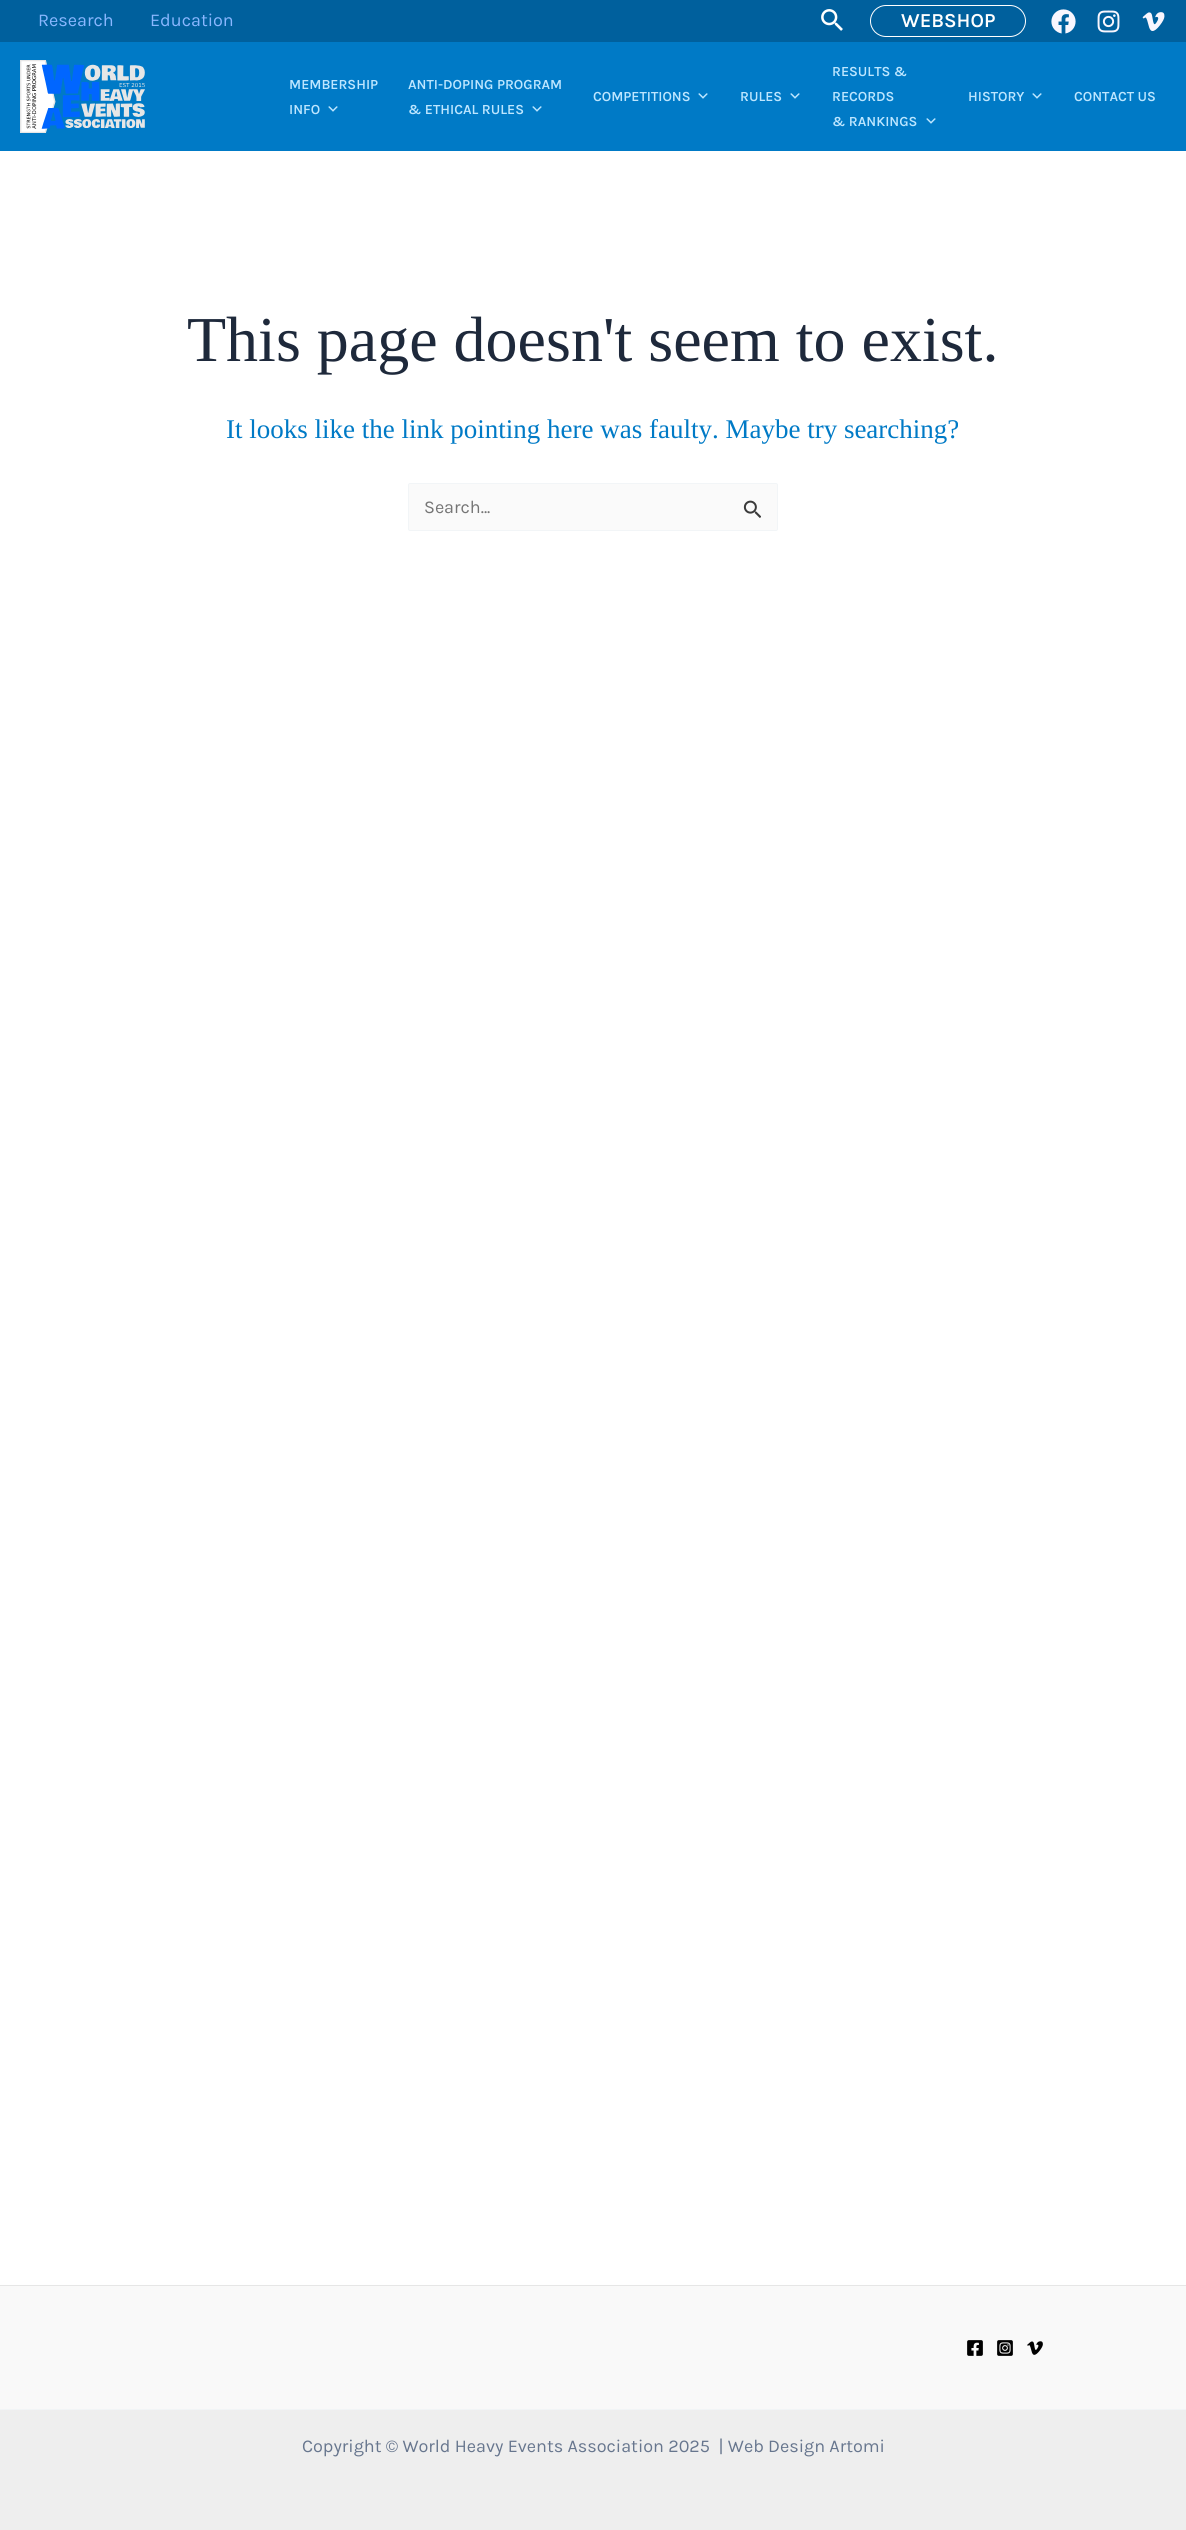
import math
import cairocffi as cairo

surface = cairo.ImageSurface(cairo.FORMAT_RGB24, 1186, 2530)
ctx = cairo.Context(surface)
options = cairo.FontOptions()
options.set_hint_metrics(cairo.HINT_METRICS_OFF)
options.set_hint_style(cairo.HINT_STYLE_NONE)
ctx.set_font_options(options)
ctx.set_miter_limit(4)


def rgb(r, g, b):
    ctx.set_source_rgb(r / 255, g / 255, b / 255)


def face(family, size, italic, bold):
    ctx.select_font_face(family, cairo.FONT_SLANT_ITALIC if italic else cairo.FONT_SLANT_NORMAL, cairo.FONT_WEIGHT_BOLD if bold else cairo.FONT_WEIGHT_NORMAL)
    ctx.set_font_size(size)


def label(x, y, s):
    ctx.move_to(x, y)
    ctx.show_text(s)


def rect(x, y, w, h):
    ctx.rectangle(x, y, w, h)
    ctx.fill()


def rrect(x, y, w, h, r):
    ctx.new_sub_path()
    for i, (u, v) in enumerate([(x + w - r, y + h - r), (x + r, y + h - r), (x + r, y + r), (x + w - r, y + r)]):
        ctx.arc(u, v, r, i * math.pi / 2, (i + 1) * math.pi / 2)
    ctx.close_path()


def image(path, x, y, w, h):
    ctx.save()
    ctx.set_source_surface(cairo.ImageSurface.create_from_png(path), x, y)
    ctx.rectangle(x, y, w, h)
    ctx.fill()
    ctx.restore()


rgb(255, 255, 255)
ctx.paint()
rgb(0, 96, 157)
rect(0, 0, 1186, 42)
face('Karla', 18, 0, 0)
rgb(138, 183, 255)
label(38, 26, 'Research')
label(150, 26, 'Education')
image('image0.png', 821, 9, 22, 22)
rrect(870.5, 5.5, 155, 31, 15.5)
rgb(255, 255, 255)
ctx.set_line_width(1)
ctx.stroke()
face('Karla SemiBold', 20, 0, 0)
label(901, 27, 'WEBSHOP')
image('image1.png', 1051, 9, 25, 25)
image('image2.png', 1097, 10, 23, 23)
image('image3.png', 1142, 12, 23, 19)
rgb(0, 122, 198)
rect(0, 42, 1186, 109)
image('image4.png', 20, 60, 125, 73)
face('Karla SemiBold', 14, 0, 0)
rgb(189, 230, 255)
label(289, 89, 'MEMBERSHIP')
label(289, 114, 'INFO')
image('image5.png', 328, 106, 10, 6)
label(408, 89, 'ANTI-DOPING PROGRAM')
label(408, 114, '& ETHICAL RULES')
image('image5.png', 532, 106, 10, 6)
label(593, 101, 'COMPETITIONS')
image('image5.png', 698, 93, 10, 6)
label(740, 101, 'RULES')
image('image5.png', 790, 93, 10, 6)
label(832, 76, 'RESULTS &')
label(832, 101, 'RECORDS')
label(832, 126, '& RANKINGS')
image('image5.png', 926, 118, 10, 6)
label(968, 101, 'HISTORY')
image('image5.png', 1032, 93, 10, 6)
label(1074, 101, 'CONTACT US')
face('Liberation Serif', 64, 0, 0)
rgb(30, 41, 59)
label(187, 361, 'This page doesn\'t seem to exist.')
face('Liberation Serif', 27, 0, 0)
rgb(0, 122, 198)
label(226, 438, 'It looks like the link pointing here was faulty. Maybe try searching?')
rgb(250, 250, 250)
rrect(408.5, 483.5, 369, 47, 1.5)
ctx.fill_preserve()
rgb(242, 245, 247)
ctx.stroke()
face('Karla', 18, 0, 0)
rgb(117, 117, 117)
label(424, 513, 'Search...')
image('image6.png', 743, 500, 18, 18)
rgb(249, 249, 249)
rect(0, 2286, 1186, 123)
rgb(230, 230, 230)
rect(0, 2285, 1186, 1)
image('image7.png', 967, 2340, 16, 16)
image('image8.png', 997, 2340, 16, 16)
image('image9.png', 1027, 2341, 16, 14)
rgb(238, 238, 238)
rect(0, 2410, 1186, 120)
rgb(242, 245, 247)
rect(0, 2409, 1186, 1)
rgb(103, 118, 142)
label(302, 2452, 'Copyright © World Heavy Events Association 2025  | Web Design Artomi')
surface.write_to_png('render.png')
